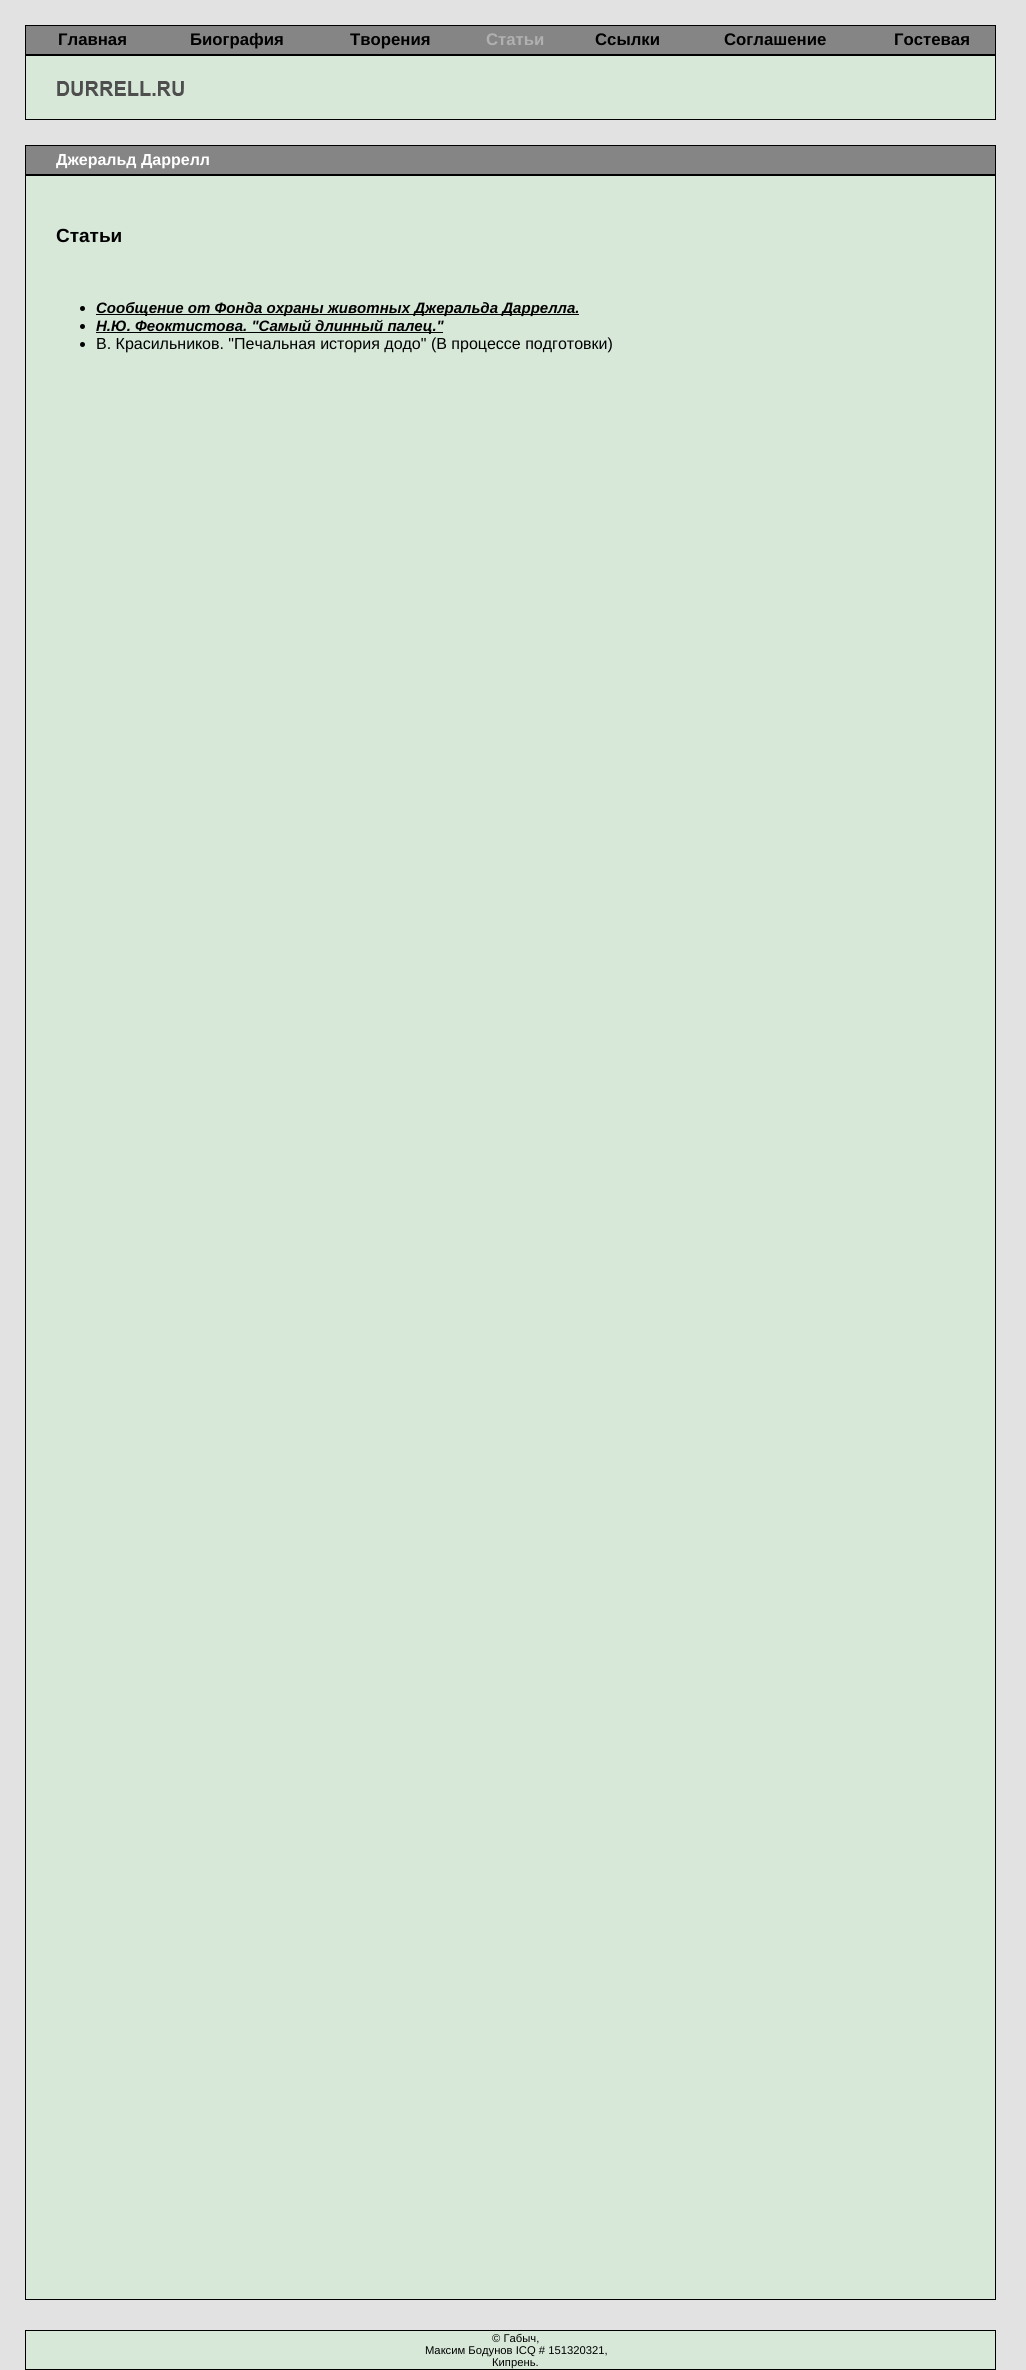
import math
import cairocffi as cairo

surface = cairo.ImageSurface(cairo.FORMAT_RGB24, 1026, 2370)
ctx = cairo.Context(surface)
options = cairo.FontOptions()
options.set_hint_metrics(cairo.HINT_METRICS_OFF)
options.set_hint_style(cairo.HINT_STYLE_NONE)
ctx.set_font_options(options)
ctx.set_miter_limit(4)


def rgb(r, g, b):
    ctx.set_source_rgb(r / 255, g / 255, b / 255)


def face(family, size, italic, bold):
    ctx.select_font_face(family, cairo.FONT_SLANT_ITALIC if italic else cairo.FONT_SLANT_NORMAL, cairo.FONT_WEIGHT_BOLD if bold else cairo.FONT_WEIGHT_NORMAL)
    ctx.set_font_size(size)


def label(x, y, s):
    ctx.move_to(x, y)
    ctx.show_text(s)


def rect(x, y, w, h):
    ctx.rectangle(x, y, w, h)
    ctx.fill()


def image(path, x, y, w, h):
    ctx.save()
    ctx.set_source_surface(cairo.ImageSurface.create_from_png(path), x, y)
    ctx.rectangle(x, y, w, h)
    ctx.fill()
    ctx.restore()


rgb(226, 226, 226)
ctx.paint()
rgb(133, 133, 133)
rect(26, 26, 969, 28)
rgb(0, 0, 0)
rect(25, 25, 971, 1)
rect(25, 54, 834, 1)
rect(25, 25, 1, 30)
face('Liberation Sans', 16.75, 0, 1)
label(58, 45, 'Главная')
label(190, 45, 'Биография')
label(350, 45, 'Творения')
rgb(176, 176, 176)
label(486, 45, 'Статьи')
rgb(0, 0, 0)
label(595, 45, 'Ссылки')
label(724, 45, 'Соглашение')
rect(995, 25, 1, 30)
rect(859, 54, 137, 1)
label(894, 45, 'Гостевая')
rgb(215, 232, 216)
ctx.rectangle(25.5, 55.5, 970, 64)
ctx.fill_preserve()
rgb(0, 0, 0)
ctx.set_line_width(1)
ctx.stroke()
image('image0.png', 57, 81, 127, 15)
rgb(133, 133, 133)
ctx.rectangle(25.5, 145.5, 970, 29)
ctx.fill_preserve()
rgb(0, 0, 0)
ctx.stroke()
face('Liberation Sans', 16, 0, 1)
rgb(255, 255, 255)
label(56, 165, 'Джеральд Даррелл')
rgb(215, 232, 216)
ctx.rectangle(25.5, 175.5, 970, 2124)
ctx.fill_preserve()
rgb(0, 0, 0)
ctx.stroke()
face('Liberation Sans', 19, 0, 1)
label(56, 242, 'Статьи')
ctx.new_path()
ctx.arc(82.5, 308.5, 2.5, 0, 2 * math.pi)
ctx.fill()
rect(96, 314, 483, 1)
face('Liberation Sans', 15.05, 1, 1)
label(96, 313, 'Сообщение от Фонда охраны животных Джеральда Даррелла.')
ctx.new_path()
ctx.arc(82.5, 326.5, 2.5, 0, 2 * math.pi)
ctx.fill()
rect(96, 332, 347, 1)
label(96, 331, 'Н.Ю. Феоктистова. "Самый длинный палец."')
ctx.new_path()
ctx.arc(82.5, 344.5, 2.5, 0, 2 * math.pi)
ctx.fill()
face('Liberation Sans', 16, 0, 0)
label(96, 349, 'В. Красильников. "Печальная история додо" (В процессе подготовки)')
rgb(215, 232, 216)
ctx.rectangle(25.5, 2330.5, 970, 39)
ctx.fill_preserve()
rgb(0, 0, 0)
ctx.stroke()
face('Liberation Sans', 11.25, 0, 0)
label(492, 2342, '© Габыч,')
label(425, 2354, 'Максим Бодунов ICQ # 151320321,')
label(492, 2366, 'Кипрень.')
surface.write_to_png('render.png')
